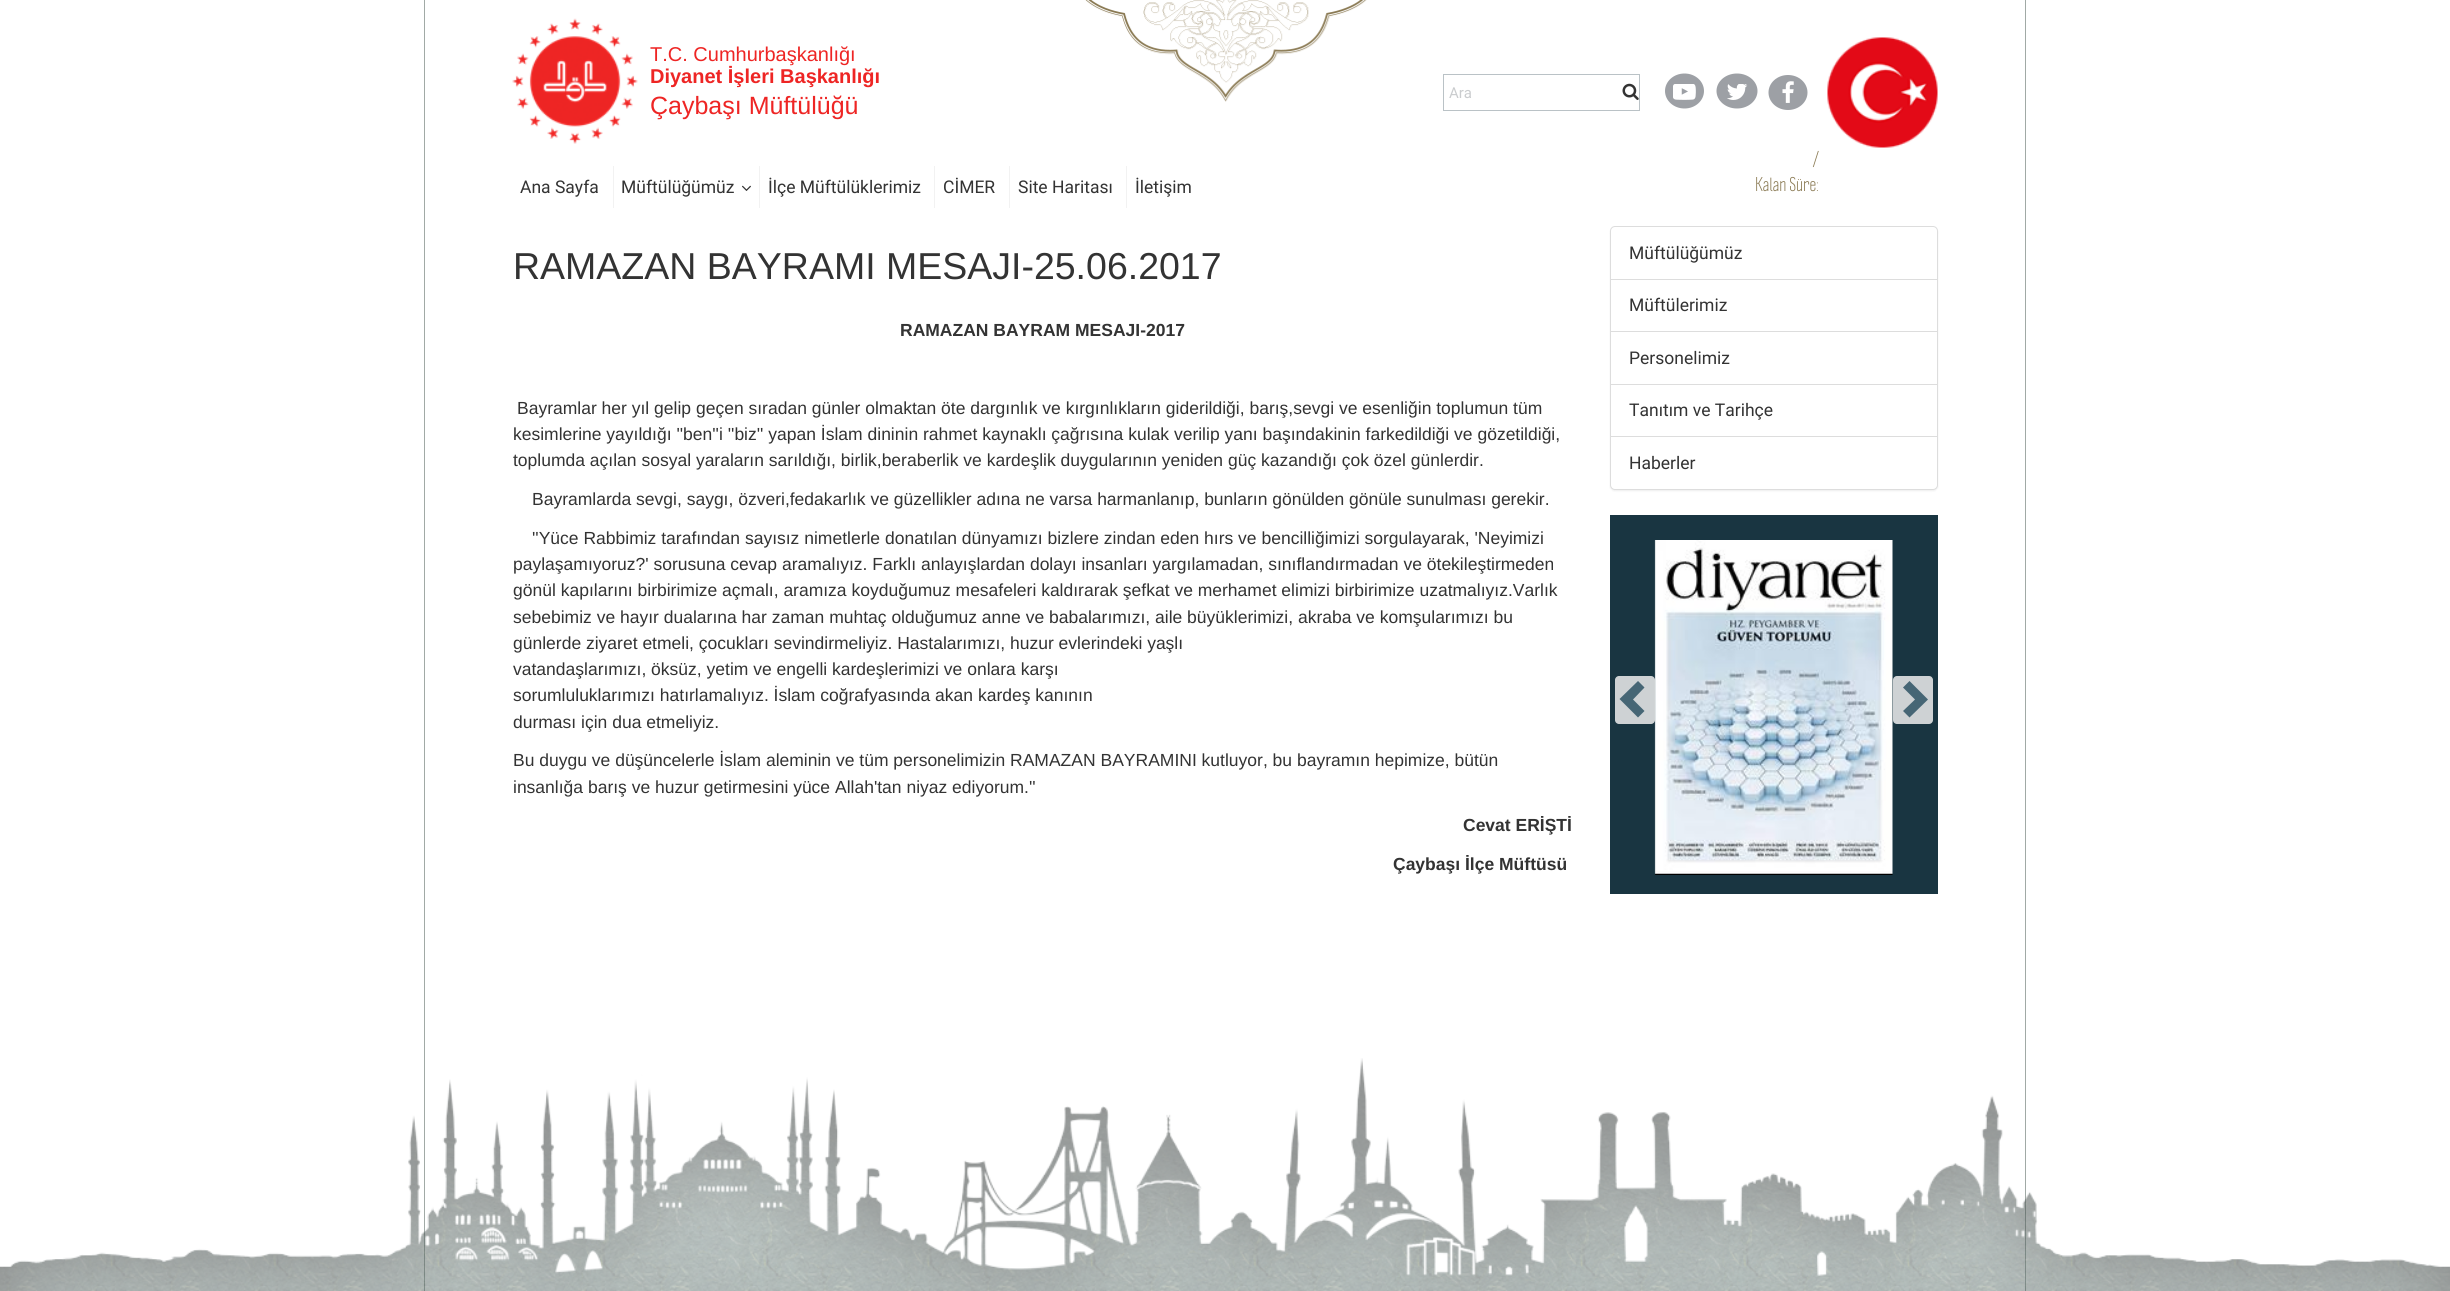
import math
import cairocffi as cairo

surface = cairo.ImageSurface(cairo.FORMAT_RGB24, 2450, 1291)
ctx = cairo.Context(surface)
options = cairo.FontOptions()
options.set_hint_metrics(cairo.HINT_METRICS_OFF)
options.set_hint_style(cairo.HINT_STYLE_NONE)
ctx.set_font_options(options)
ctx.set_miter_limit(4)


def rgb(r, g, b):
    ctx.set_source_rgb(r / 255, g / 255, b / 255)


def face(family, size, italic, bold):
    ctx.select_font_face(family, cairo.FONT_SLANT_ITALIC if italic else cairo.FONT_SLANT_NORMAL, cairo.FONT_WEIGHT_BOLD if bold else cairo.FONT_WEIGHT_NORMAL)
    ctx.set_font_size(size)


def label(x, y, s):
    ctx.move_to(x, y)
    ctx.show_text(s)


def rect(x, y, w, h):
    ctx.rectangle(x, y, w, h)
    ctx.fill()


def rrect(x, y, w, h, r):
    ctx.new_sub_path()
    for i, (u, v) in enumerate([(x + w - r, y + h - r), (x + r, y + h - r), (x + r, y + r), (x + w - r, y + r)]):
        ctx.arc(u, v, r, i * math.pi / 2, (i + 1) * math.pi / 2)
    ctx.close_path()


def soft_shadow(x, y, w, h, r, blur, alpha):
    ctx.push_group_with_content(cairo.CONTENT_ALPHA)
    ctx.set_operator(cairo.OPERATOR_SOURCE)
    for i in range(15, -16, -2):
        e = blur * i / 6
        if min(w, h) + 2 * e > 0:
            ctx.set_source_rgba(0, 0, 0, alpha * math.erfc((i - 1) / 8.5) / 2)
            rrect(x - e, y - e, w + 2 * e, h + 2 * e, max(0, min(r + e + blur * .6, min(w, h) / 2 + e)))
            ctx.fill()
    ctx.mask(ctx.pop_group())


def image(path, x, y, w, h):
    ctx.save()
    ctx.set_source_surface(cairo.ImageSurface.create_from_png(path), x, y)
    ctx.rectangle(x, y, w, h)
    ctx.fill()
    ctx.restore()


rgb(255, 255, 255)
ctx.paint()
rgb(161, 170, 166)
rect(2025, 0, 1, 1291)
rect(424, 0, 1, 1291)
image('image0.png', 1085, 0, 282, 102)
image('image1.png', 512, 18, 126, 126)
face('Liberation Sans', 20, 0, 0)
rgb(238, 37, 36)
label(650, 61, 'T.C. Cumhurbaşkanlığı')
face('Liberation Sans', 20, 0, 1)
label(650, 83, 'Diyanet İşleri Başkanlığı')
face('Liberation Sans', 25, 0, 0)
label(650, 114, 'Çaybaşı Müftülüğü')
ctx.rectangle(1443.5, 74.5, 196, 36)
rgb(186, 194, 198)
ctx.set_line_width(1)
ctx.stroke()
face('Roboto', 15, 0, 0)
rgb(202, 204, 206)
label(1449, 98, 'Ara')
image('image2.png', 1622, 83, 17, 17)
rgb(157, 160, 165)
ctx.new_path()
ctx.move_to(1684.5, 73.5)
ctx.curve_to(1695.5, 73.5, 1704, 81.5, 1704, 91)
ctx.curve_to(1704, 100.5, 1695.5, 108.5, 1684.5, 108.5)
ctx.curve_to(1673.5, 108.5, 1665, 100.5, 1665, 91)
ctx.curve_to(1665, 81.5, 1673.5, 73.5, 1684.5, 73.5)
ctx.close_path()
ctx.fill()
image('image3.png', 1673, 84, 23, 16)
ctx.new_path()
ctx.move_to(1737, 73.5)
ctx.curve_to(1748.5, 73.5, 1757.5, 81.5, 1757.5, 91)
ctx.curve_to(1757.5, 100.5, 1748.5, 108.5, 1737, 108.5)
ctx.curve_to(1725.5, 108.5, 1716.5, 100.5, 1716.5, 91)
ctx.curve_to(1716.5, 81.5, 1725.5, 73.5, 1737, 73.5)
ctx.close_path()
ctx.fill()
image('image4.png', 1727, 84, 21, 16)
ctx.new_path()
ctx.move_to(1788, 75)
ctx.curve_to(1799, 75, 1807.5, 83, 1807.5, 92.5)
ctx.curve_to(1807.5, 102, 1799, 110, 1788, 110)
ctx.curve_to(1777, 110, 1768.5, 102, 1768.5, 92.5)
ctx.curve_to(1768.5, 83, 1777, 75, 1788, 75)
ctx.close_path()
ctx.fill()
image('image5.png', 1782, 81, 12, 22)
image('image6.png', 1827, 37, 111, 111)
rgb(242, 242, 242)
rect(613, 166, 1, 42)
face('Roboto', 17.5, 0, 0)
rgb(51, 51, 51)
label(520, 193, 'Ana Sayfa')
rgb(242, 242, 242)
rect(759, 166, 1, 42)
rgb(51, 51, 51)
label(621, 193, 'Müftülüğümüz')
image('image7.png', 742, 185, 9, 6)
rgb(242, 242, 242)
rect(934, 166, 1, 42)
rgb(51, 51, 51)
label(768, 193, 'İlçe Müftülüklerimiz')
rgb(242, 242, 242)
rect(1009, 166, 1, 42)
rgb(51, 51, 51)
label(943, 193, 'CİMER')
rgb(242, 242, 242)
rect(1126, 166, 1, 42)
rgb(51, 51, 51)
label(1018, 193, 'Site Haritası')
label(1135, 193, 'İletişim')
face('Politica', 17.5, 0, 0)
rgb(140, 124, 86)
label(1813, 166, '/')
label(1755, 191, 'Kalan Süre:')
face('Liberation Sans', 37.5, 0, 0)
rgb(51, 51, 51)
label(513, 279, 'RAMAZAN BAYRAMI MESAJI-25.06.2017')
face('Liberation Sans', 17.5, 0, 1)
label(900, 336, 'RAMAZAN BAYRAM MESAJI-2017')
face('Liberation Sans', 17.5, 0, 0)
label(517, 414, 'Bayramlar her yıl gelip geçen sıradan günler olmaktan öte dargınlık ve kırgınlıkların giderildiği, barış,sevgi ve esenliğin toplumun tüm')
label(513, 440, 'kesimlerine yayıldığı \'\'ben\'\'i \'\'biz\'\' yapan İslam dininin rahmet kaynaklı çağrısına kulak verilip yanı başındakinin farkedildiği ve gözetildiği,')
label(513, 466, 'toplumda açılan sosyal yaraların sarıldığı, birlik,beraberlik ve kardeşlik duygularının yeniden güç kazandığı çok özel günlerdir.')
label(532, 505, 'Bayramlarda sevgi, saygı, özveri,fedakarlık ve güzellikler adına ne varsa harmanlanıp, bunların gönülden gönüle sunulması gerekir.')
label(532, 544, '\'\'Yüce Rabbimiz tarafından sayısız nimetlerle donatılan dünyamızı bizlere zindan eden hırs ve bencilliğimizi sorgulayarak, \'Neyimizi')
label(513, 570, 'paylaşamıyoruz?\' sorusuna cevap aramalıyız. Farklı anlayışlardan dolayı insanları yargılamadan, sınıflandırmadan ve ötekileştirmeden')
label(513, 596, 'gönül kapılarını birbirimize açmalı, aramıza koyduğumuz mesafeleri kaldırarak şefkat ve merhamet elimizi birbirimize uzatmalıyız.Varlık')
label(513, 623, 'sebebimiz ve hayır dualarına har zaman muhtaç olduğumuz anne ve babalarımızı, aile büyüklerimizi, akraba ve komşularımızı bu')
label(513, 649, 'günlerde ziyaret etmeli, çocukları sevindirmeliyiz. Hastalarımızı, huzur evlerindeki yaşlı')
label(513, 675, 'vatandaşlarımızı, öksüz, yetim ve engelli kardeşlerimizi ve onlara karşı')
label(513, 701, 'sorumluluklarımızı hatırlamalıyız. İslam coğrafyasında akan kardeş kanının')
label(513, 728, 'durması için dua etmeliyiz.')
label(513, 766, 'Bu duygu ve düşüncelerle İslam aleminin ve tüm personelimizin RAMAZAN BAYRAMINI kutluyor, bu bayramın hepimize, bütün')
label(513, 793, 'insanlığa barış ve huzur getirmesini yüce Allah\'tan niyaz ediyorum.\'\'')
face('Liberation Sans', 17.5, 0, 1)
label(1463, 831, 'Cevat ERİŞTİ')
label(1393, 870, 'Çaybaşı İlçe Müftüsü')
rgb(0, 0, 0)
soft_shadow(1610, 228, 328, 263, 5, 1, 0.07)
rgb(255, 255, 255)
ctx.new_path()
ctx.move_to(1615, 226.5)
ctx.line_to(1933, 226.5)
ctx.curve_to(1935.5, 226.5, 1937.5, 228.5, 1937.5, 231)
ctx.line_to(1937.5, 279.5)
ctx.line_to(1610.5, 279.5)
ctx.line_to(1610.5, 231)
ctx.curve_to(1610.5, 228.5, 1612.5, 226.5, 1615, 226.5)
ctx.close_path()
ctx.fill_preserve()
rgb(221, 221, 221)
ctx.stroke()
face('Roboto', 17.5, 0, 0)
rgb(51, 51, 51)
label(1629, 259, 'Müftülüğümüz')
rgb(255, 255, 255)
rect(1611, 280, 326, 51)
ctx.rectangle(1610.5, 279.5, 327, 53)
rgb(221, 221, 221)
ctx.stroke()
rgb(51, 51, 51)
label(1629, 311, 'Müftülerimiz')
rgb(255, 255, 255)
ctx.rectangle(1610.5, 331.5, 327, 53)
ctx.fill_preserve()
rgb(221, 221, 221)
ctx.stroke()
rgb(51, 51, 51)
label(1629, 364, 'Personelimiz')
rgb(255, 255, 255)
rect(1611, 385, 326, 51)
ctx.rectangle(1610.5, 384.5, 327, 53)
rgb(221, 221, 221)
ctx.stroke()
rgb(51, 51, 51)
label(1629, 416, 'Tanıtım ve Tarihçe')
rgb(255, 255, 255)
ctx.new_path()
ctx.move_to(1610.5, 436.5)
ctx.line_to(1937.5, 436.5)
ctx.line_to(1937.5, 485)
ctx.curve_to(1937.5, 487.5, 1935.5, 489.5, 1933, 489.5)
ctx.line_to(1615, 489.5)
ctx.curve_to(1612.5, 489.5, 1610.5, 487.5, 1610.5, 485)
ctx.close_path()
ctx.fill_preserve()
rgb(221, 221, 221)
ctx.stroke()
rgb(51, 51, 51)
label(1629, 469, 'Haberler')
rgb(25, 53, 65)
rect(1610, 515, 328, 379)
image('image8.png', 1654, 540, 239, 335)
ctx.set_source_rgba(0.925, 0.925, 0.925, 0.86)
rrect(1615, 676, 40, 48, 4)
ctx.fill()
rgb(70, 102, 117)
ctx.new_path()
ctx.move_to(1644.5, 687.5)
ctx.line_to(1633, 699.5)
ctx.line_to(1644.5, 711)
ctx.line_to(1638, 717.5)
ctx.line_to(1619.5, 699)
ctx.line_to(1638, 681)
ctx.close_path()
ctx.fill()
rgb(206, 210, 212)
rrect(1893, 676, 40, 48, 4)
ctx.fill()
rgb(70, 102, 117)
ctx.new_path()
ctx.move_to(1928, 699.5)
ctx.line_to(1909.5, 717.5)
ctx.line_to(1903, 711)
ctx.line_to(1915, 699.5)
ctx.line_to(1903, 687.5)
ctx.line_to(1909.5, 681)
ctx.close_path()
ctx.fill()
image('image9.png', 0, 1058, 2450, 233)
surface.write_to_png('render.png')
